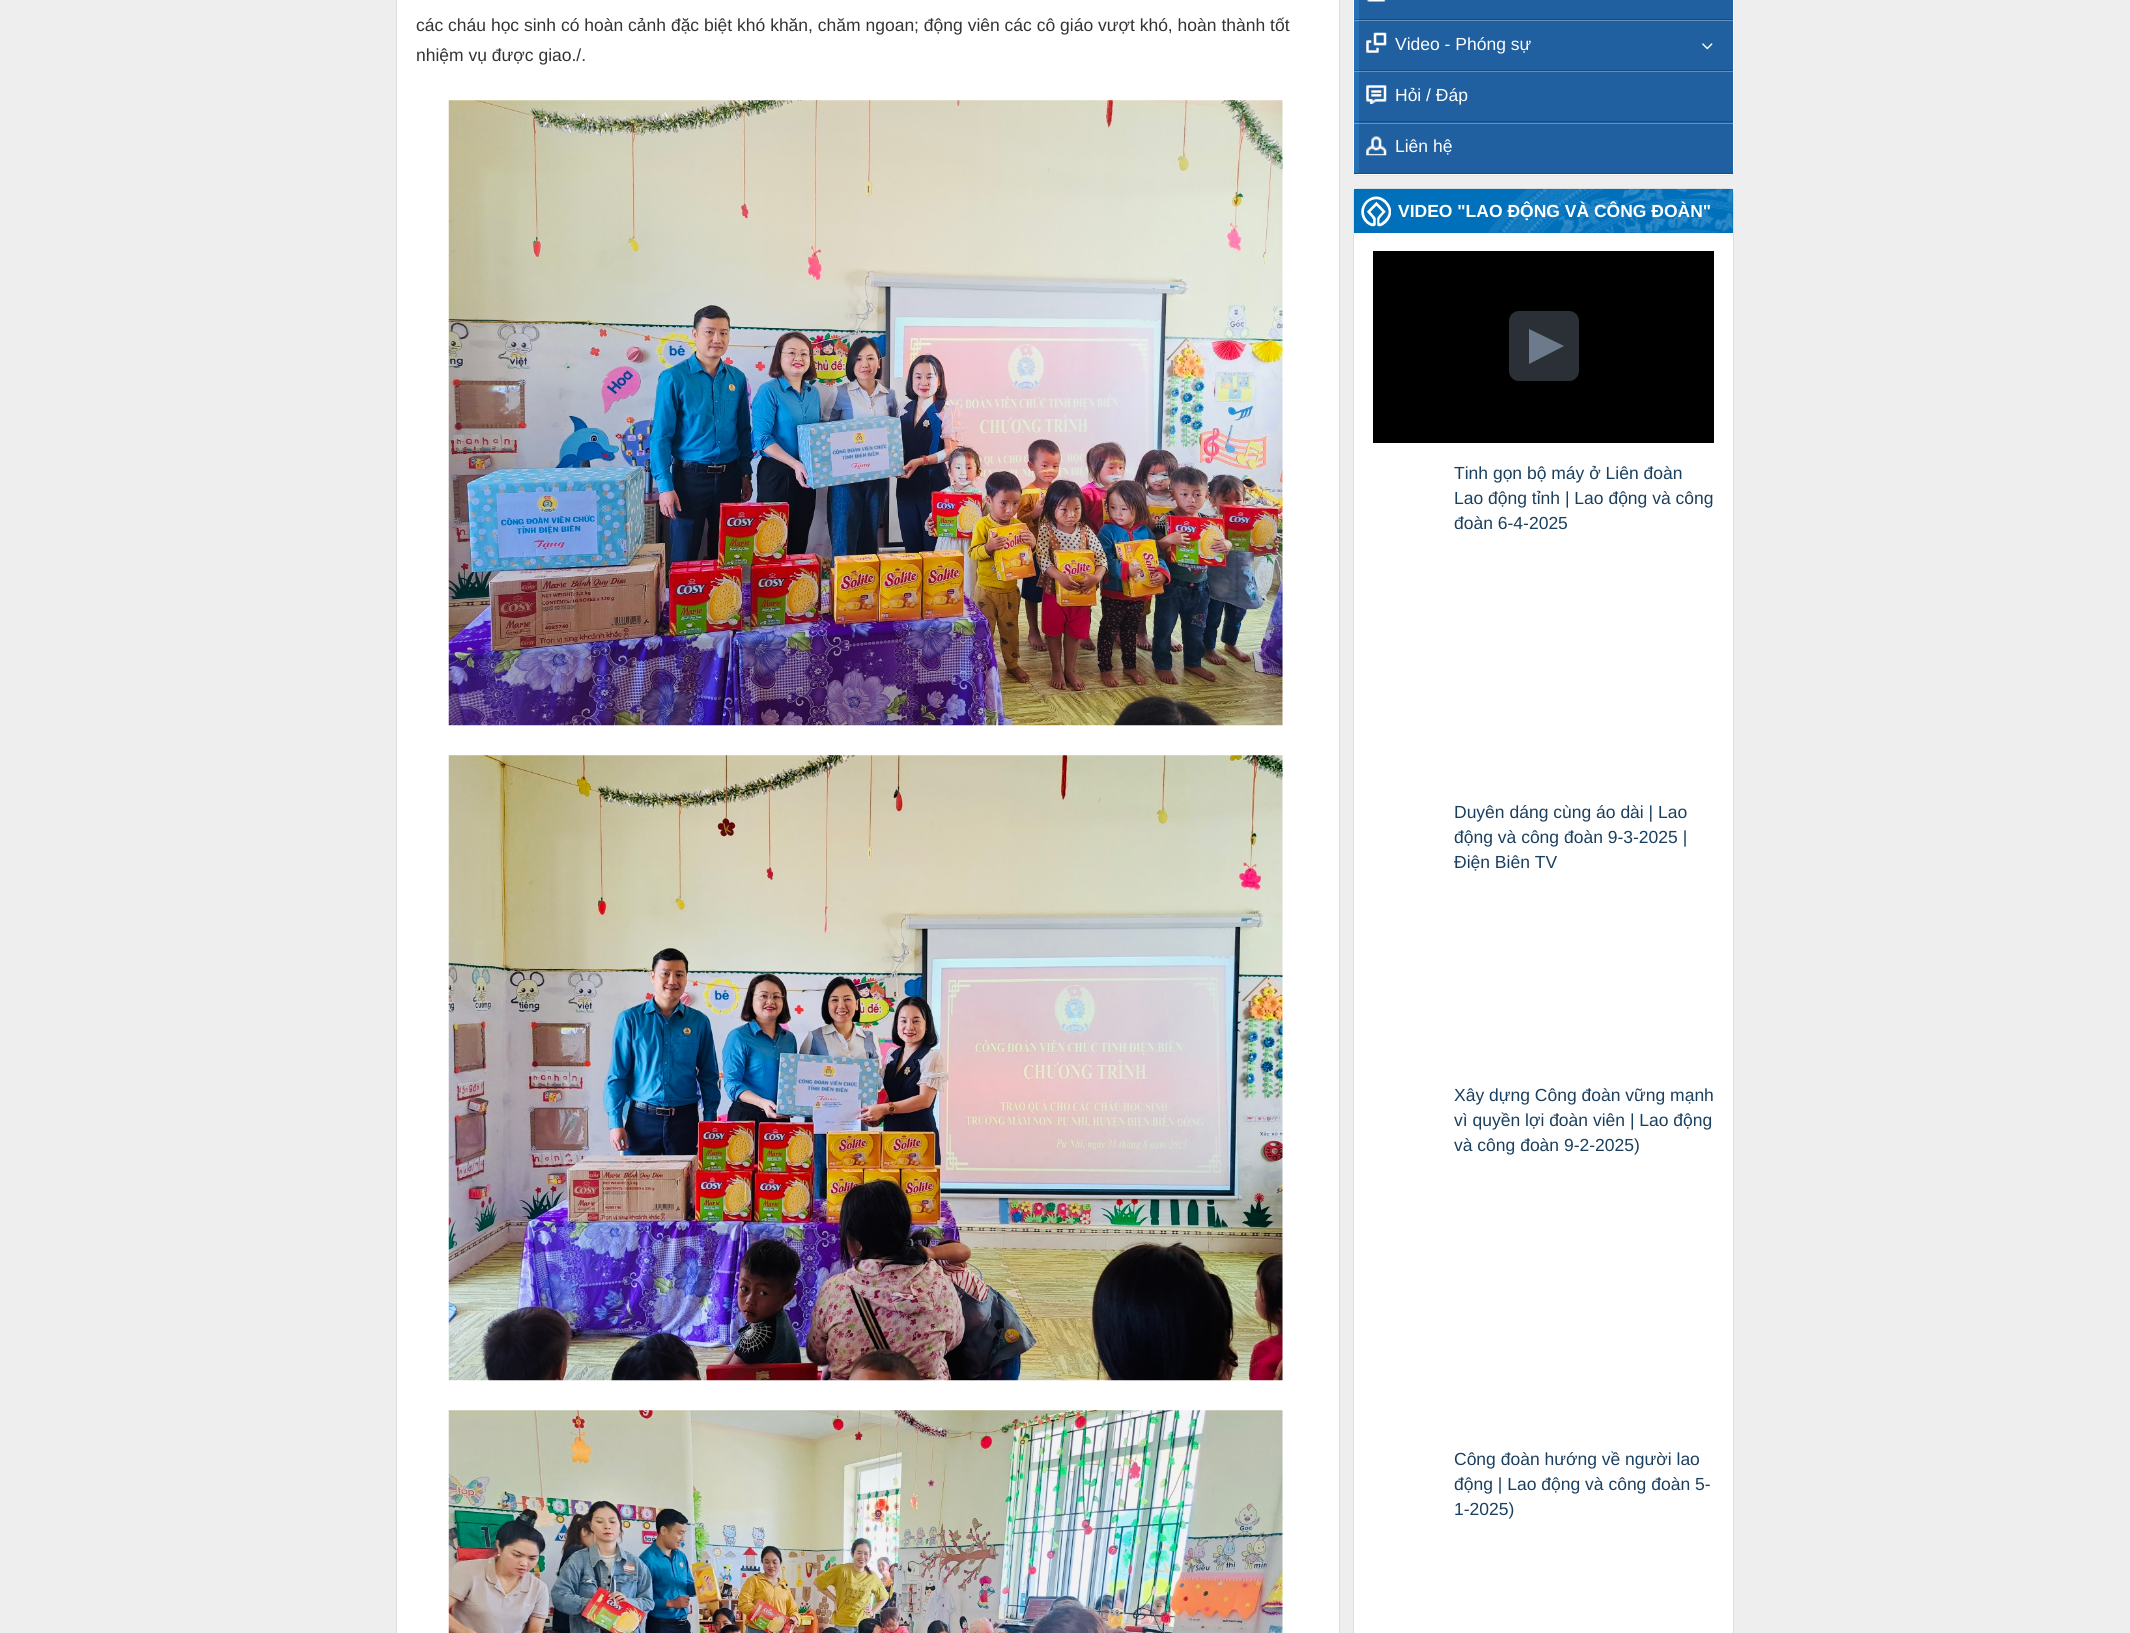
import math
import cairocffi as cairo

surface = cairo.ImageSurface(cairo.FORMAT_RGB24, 2130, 1633)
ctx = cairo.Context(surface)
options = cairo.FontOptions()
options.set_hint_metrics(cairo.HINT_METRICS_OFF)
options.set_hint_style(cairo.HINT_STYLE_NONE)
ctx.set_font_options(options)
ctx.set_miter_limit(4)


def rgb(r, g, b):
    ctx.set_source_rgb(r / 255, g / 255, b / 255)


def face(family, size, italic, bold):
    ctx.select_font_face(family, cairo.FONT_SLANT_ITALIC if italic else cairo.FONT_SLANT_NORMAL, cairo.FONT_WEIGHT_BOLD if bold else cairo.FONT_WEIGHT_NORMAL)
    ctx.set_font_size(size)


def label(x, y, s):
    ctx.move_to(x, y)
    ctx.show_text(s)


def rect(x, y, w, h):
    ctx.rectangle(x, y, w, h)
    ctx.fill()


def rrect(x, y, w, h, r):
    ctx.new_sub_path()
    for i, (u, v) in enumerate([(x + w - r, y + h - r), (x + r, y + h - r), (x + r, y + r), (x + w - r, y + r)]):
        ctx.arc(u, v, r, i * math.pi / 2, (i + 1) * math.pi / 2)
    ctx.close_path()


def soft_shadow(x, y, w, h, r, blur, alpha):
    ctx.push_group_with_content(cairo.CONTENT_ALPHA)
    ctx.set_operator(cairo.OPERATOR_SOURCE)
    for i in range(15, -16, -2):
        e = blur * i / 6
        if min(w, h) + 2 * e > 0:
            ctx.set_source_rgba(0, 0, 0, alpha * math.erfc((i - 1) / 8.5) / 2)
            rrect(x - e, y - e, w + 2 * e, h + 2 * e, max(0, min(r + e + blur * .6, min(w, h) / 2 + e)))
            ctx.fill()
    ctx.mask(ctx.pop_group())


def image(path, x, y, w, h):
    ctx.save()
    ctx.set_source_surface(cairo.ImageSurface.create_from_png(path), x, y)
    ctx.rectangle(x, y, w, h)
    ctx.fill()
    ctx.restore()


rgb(238, 238, 238)
ctx.paint()
rgb(255, 255, 255)
ctx.rectangle(396.5, -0.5, 943, 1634)
ctx.fill_preserve()
rgb(221, 221, 221)
ctx.set_line_width(1)
ctx.stroke()
face('Liberation Sans', 17.5, 0, 0)
rgb(51, 51, 51)
label(416, 31, 'các cháu học sinh có hoàn cảnh đặc biệt khó khăn, chăm ngoan; động viên các cô giáo vượt khó, hoàn thành tốt')
label(416, 61, 'nhiệm vụ được giao./.')
image('image0.png', 448, 100, 835, 626)
image('image1.png', 448, 755, 835, 626)
image('image2.png', 448, 1410, 835, 223)
rgb(0, 0, 0)
soft_shadow(1353, -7, 381, 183, 5, 0.5, 0.05)
rgb(255, 255, 255)
rrect(1353, -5, 381, 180, 5)
ctx.fill()
rgb(32, 95, 160)
rect(1359, 0, 374, 173)
rgb(26, 76, 128)
rect(1354, 121, 379, 1)
rgb(99, 143, 189)
rect(1354, 123, 379, 1)
rgb(26, 76, 128)
rect(1354, 70, 379, 1)
rgb(99, 143, 189)
rect(1354, 71, 379, 1)
rgb(26, 76, 128)
rect(1354, 19, 379, 1)
rgb(99, 143, 189)
rect(1354, 20, 379, 1)
rgb(38, 113, 181)
rect(1354, 0, 5, 173)
rgb(30, 90, 145)
rect(1354, 121, 5, 1)
rgb(103, 156, 203)
rect(1354, 123, 5, 1)
rgb(30, 90, 145)
rect(1354, 70, 5, 1)
rgb(103, 156, 203)
rect(1354, 71, 5, 1)
rgb(30, 90, 145)
rect(1354, 19, 5, 1)
rgb(103, 156, 203)
rect(1354, 20, 5, 1)
rgb(26, 76, 128)
rect(1354, 173, 379, 1)
image('image3.png', 1367, 0, 19, 2)
image('image4.png', 1366, 32, 21, 21)
rgb(255, 255, 255)
label(1395, 50, 'Video - Phóng sự')
image('image5.png', 1702, 43, 11, 7)
image('image6.png', 1366, 85, 21, 19)
label(1395, 101, 'Hỏi / Đáp')
image('image7.png', 1366, 136, 21, 20)
label(1395, 152, 'Liên hệ')
rrect(1353.5, 188.5, 380, 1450, 4.5)
ctx.fill_preserve()
rgb(221, 221, 221)
ctx.stroke()
rgb(0, 112, 187)
rect(1354, 189, 379, 44)
image('image8.png', 1361, 189, 372, 44)
face('Liberation Sans', 17.5, 0, 1)
rgb(255, 255, 255)
label(1398, 217, 'VIDEO "LAO ĐỘNG VÀ CÔNG ĐOÀN"')
rgb(0, 0, 0)
rect(1373, 251, 341, 192)
rgb(43, 48, 54)
rrect(1509, 311, 70, 70, 10)
ctx.fill()
rgb(109, 122, 139)
ctx.new_path()
ctx.move_to(1564, 346)
ctx.line_to(1529, 364)
ctx.line_to(1529, 329)
ctx.close_path()
ctx.fill()
face('Liberation Sans', 17.5, 0, 0)
rgb(26, 63, 94)
label(1454, 479, 'Tinh gọn bộ máy ở Liên đoàn')
label(1454, 504, 'Lao động tỉnh | Lao động và công')
label(1454, 529, 'đoàn 6-4-2025')
label(1454, 818, 'Duyên dáng cùng áo dài | Lao')
label(1454, 843, 'động và công đoàn 9-3-2025 |')
label(1454, 868, 'Điện Biên TV')
label(1454, 1101, 'Xây dựng Công đoàn vững mạnh')
label(1454, 1126, 'vì quyền lợi đoàn viên | Lao động')
label(1454, 1151, 'và công đoàn 9-2-2025)')
label(1454, 1465, 'Công đoàn hướng về người lao')
label(1454, 1490, 'động | Lao động và công đoàn 5-')
label(1454, 1515, '1-2025)')
surface.write_to_png('render.png')
